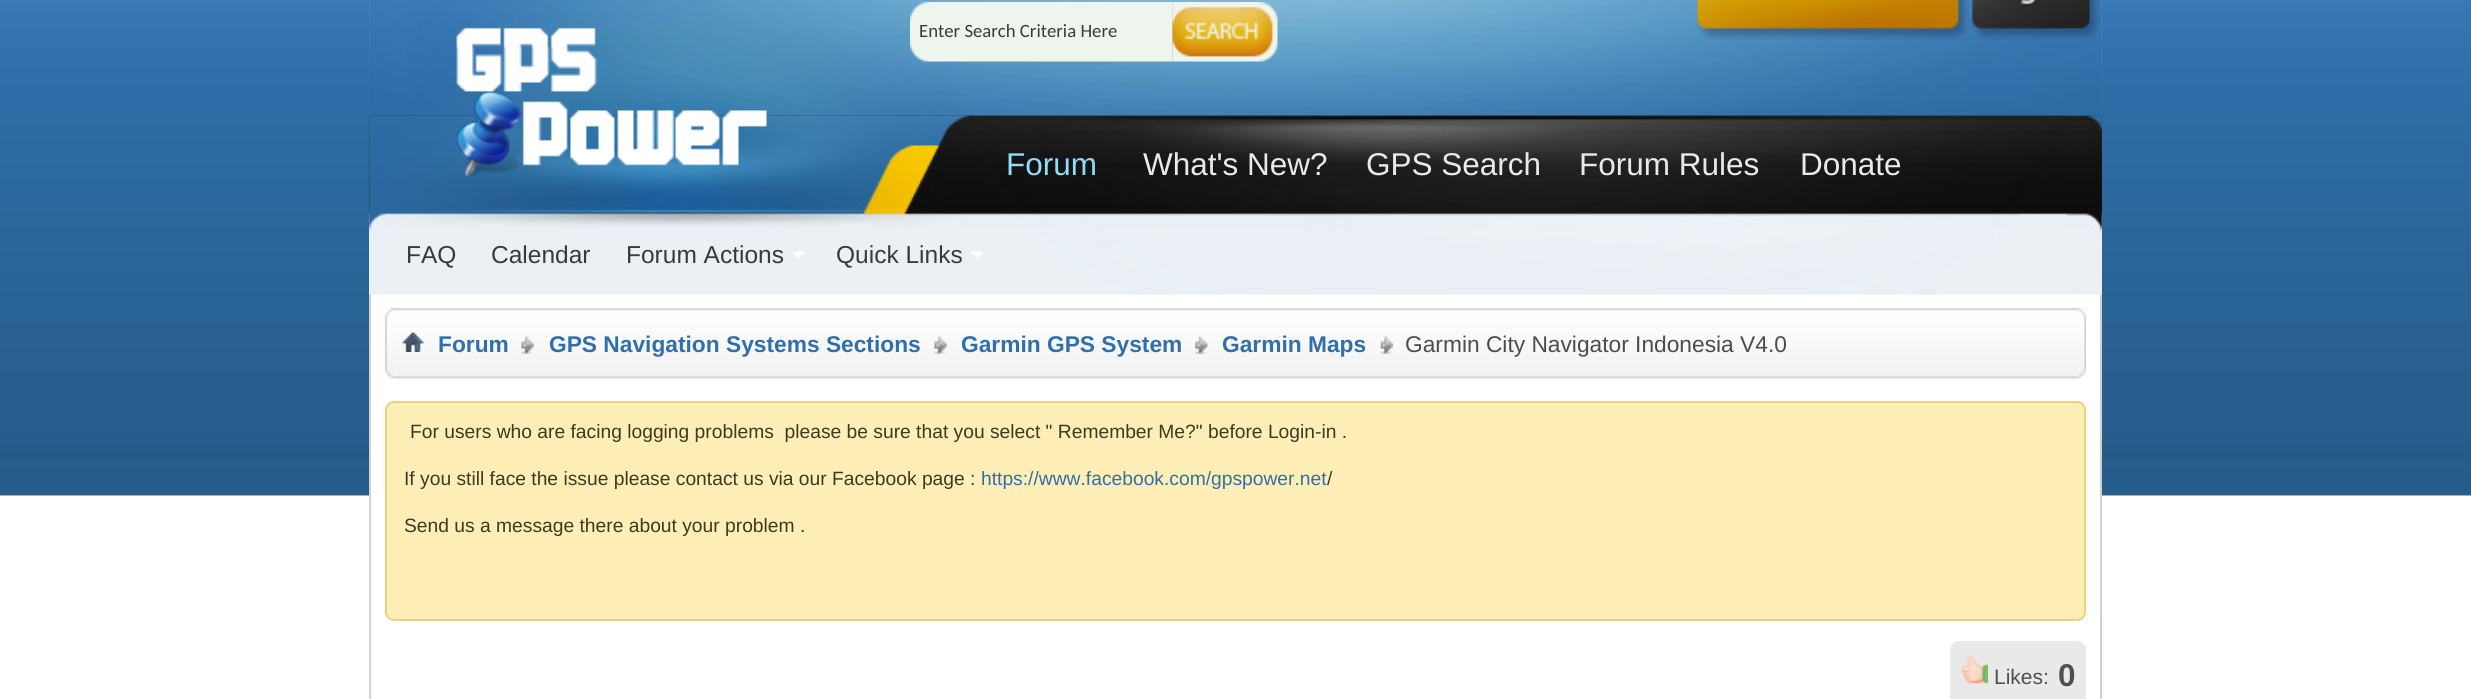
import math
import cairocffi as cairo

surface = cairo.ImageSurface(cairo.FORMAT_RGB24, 2471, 699)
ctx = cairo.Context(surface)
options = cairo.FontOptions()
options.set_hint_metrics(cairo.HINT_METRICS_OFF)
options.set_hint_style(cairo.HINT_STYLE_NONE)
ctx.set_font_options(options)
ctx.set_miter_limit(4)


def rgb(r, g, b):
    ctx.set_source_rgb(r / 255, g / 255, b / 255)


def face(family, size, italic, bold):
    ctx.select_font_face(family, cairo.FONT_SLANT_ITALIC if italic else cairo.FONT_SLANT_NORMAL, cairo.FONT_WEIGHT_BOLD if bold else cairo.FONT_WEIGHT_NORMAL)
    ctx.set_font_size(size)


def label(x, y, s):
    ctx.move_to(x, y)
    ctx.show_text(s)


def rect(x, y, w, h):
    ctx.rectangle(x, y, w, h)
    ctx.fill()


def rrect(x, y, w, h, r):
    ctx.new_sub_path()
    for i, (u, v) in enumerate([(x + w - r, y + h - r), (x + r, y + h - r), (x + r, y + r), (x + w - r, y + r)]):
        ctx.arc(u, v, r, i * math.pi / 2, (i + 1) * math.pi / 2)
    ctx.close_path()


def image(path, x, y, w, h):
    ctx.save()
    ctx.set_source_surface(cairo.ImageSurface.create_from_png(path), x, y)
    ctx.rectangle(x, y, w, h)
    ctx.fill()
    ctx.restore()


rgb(255, 255, 255)
ctx.paint()
image('image0.png', 0, 0, 2471, 496)
image('image1.png', 369, 0, 1733, 294)
rgb(255, 255, 255)
rect(371, 294, 1729, 202)
rgb(209, 209, 209)
rect(369, 294, 2, 405)
image('image2.png', 369, 0, 857, 295)
rect(2100, 294, 2, 405)
image('image3.png', 1245, 0, 857, 295)
image('image9.png', 369, 115, 1733, 180)
image('image10.png', 369, 115, 1698, 180)
image('image4.png', 456, 27, 311, 149)
image('image5.png', 910, 2, 263, 60)
face('Carlito', 18.75, 0, 0)
rgb(58, 58, 58)
label(919, 37, 'Enter Search Criteria Here')
image('image6.png', 1172, 2, 106, 60)
image('image7.png', 1697, 0, 272, 40)
image('image8.png', 1971, 0, 129, 40)
image('image11.png', 2084, 115, 18, 180)
face('Liberation Sans', 31.5, 0, 0)
rgb(145, 219, 244)
label(1006, 175, 'Forum')
rgb(233, 233, 233)
label(1143, 175, 'What\'s New?')
label(1366, 175, 'GPS Search')
label(1579, 175, 'Forum Rules')
label(1800, 175, 'Donate')
face('Liberation Sans', 24.5, 0, 0)
rgb(58, 58, 58)
label(406, 263, 'FAQ')
label(491, 263, 'Calendar')
label(626, 263, 'Forum Actions')
image('image12.png', 792, 251, 13, 8)
label(836, 263, 'Quick Links')
image('image13.png', 970, 251, 14, 8)
image('image14.png', 385, 308, 1701, 71)
image('image15.png', 385, 308, 14, 71)
image('image16.png', 2072, 308, 14, 71)
image('image17.png', 402, 332, 22, 20)
image('image18.png', 521, 336, 13, 18)
face('Liberation Sans', 22.75, 0, 1)
rgb(48, 111, 171)
label(438, 352, 'Forum')
image('image19.png', 934, 336, 13, 18)
label(549, 352, 'GPS Navigation Systems Sections')
image('image20.png', 1195, 336, 13, 18)
label(961, 352, 'Garmin GPS System')
image('image21.png', 1380, 336, 13, 18)
label(1222, 352, 'Garmin Maps')
face('Liberation Sans', 22.75, 0, 0)
rgb(76, 76, 76)
label(1405, 352, 'Garmin City Navigator Indonesia V4.0')
rgb(255, 239, 182)
rrect(386, 402, 1699, 218, 8)
ctx.fill_preserve()
rgb(235, 210, 123)
ctx.stroke()
face('Liberation Sans', 19.25, 0, 0)
rgb(60, 58, 34)
label(410, 438, 'For users who are facing logging problems  please be sure that you select " Remember Me?" before Login-in .')
label(404, 485, 'If you still face the issue please contact us via our Facebook page :')
rgb(48, 111, 171)
label(981, 485, 'https://www.facebook.com/gpspower.net')
rgb(60, 58, 34)
label(1327, 485, '/')
label(404, 532, 'Send us a message there about your problem .')
rgb(233, 233, 233)
rrect(1950, 641, 136, 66, 9)
ctx.fill()
image('image22.png', 1961, 656, 27, 29)
face('Liberation Sans', 21, 0, 0)
rgb(77, 81, 83)
label(1994, 684, 'Likes:')
face('Liberation Sans', 31.5, 0, 1)
label(2058, 686, '0')
surface.write_to_png('render.png')
